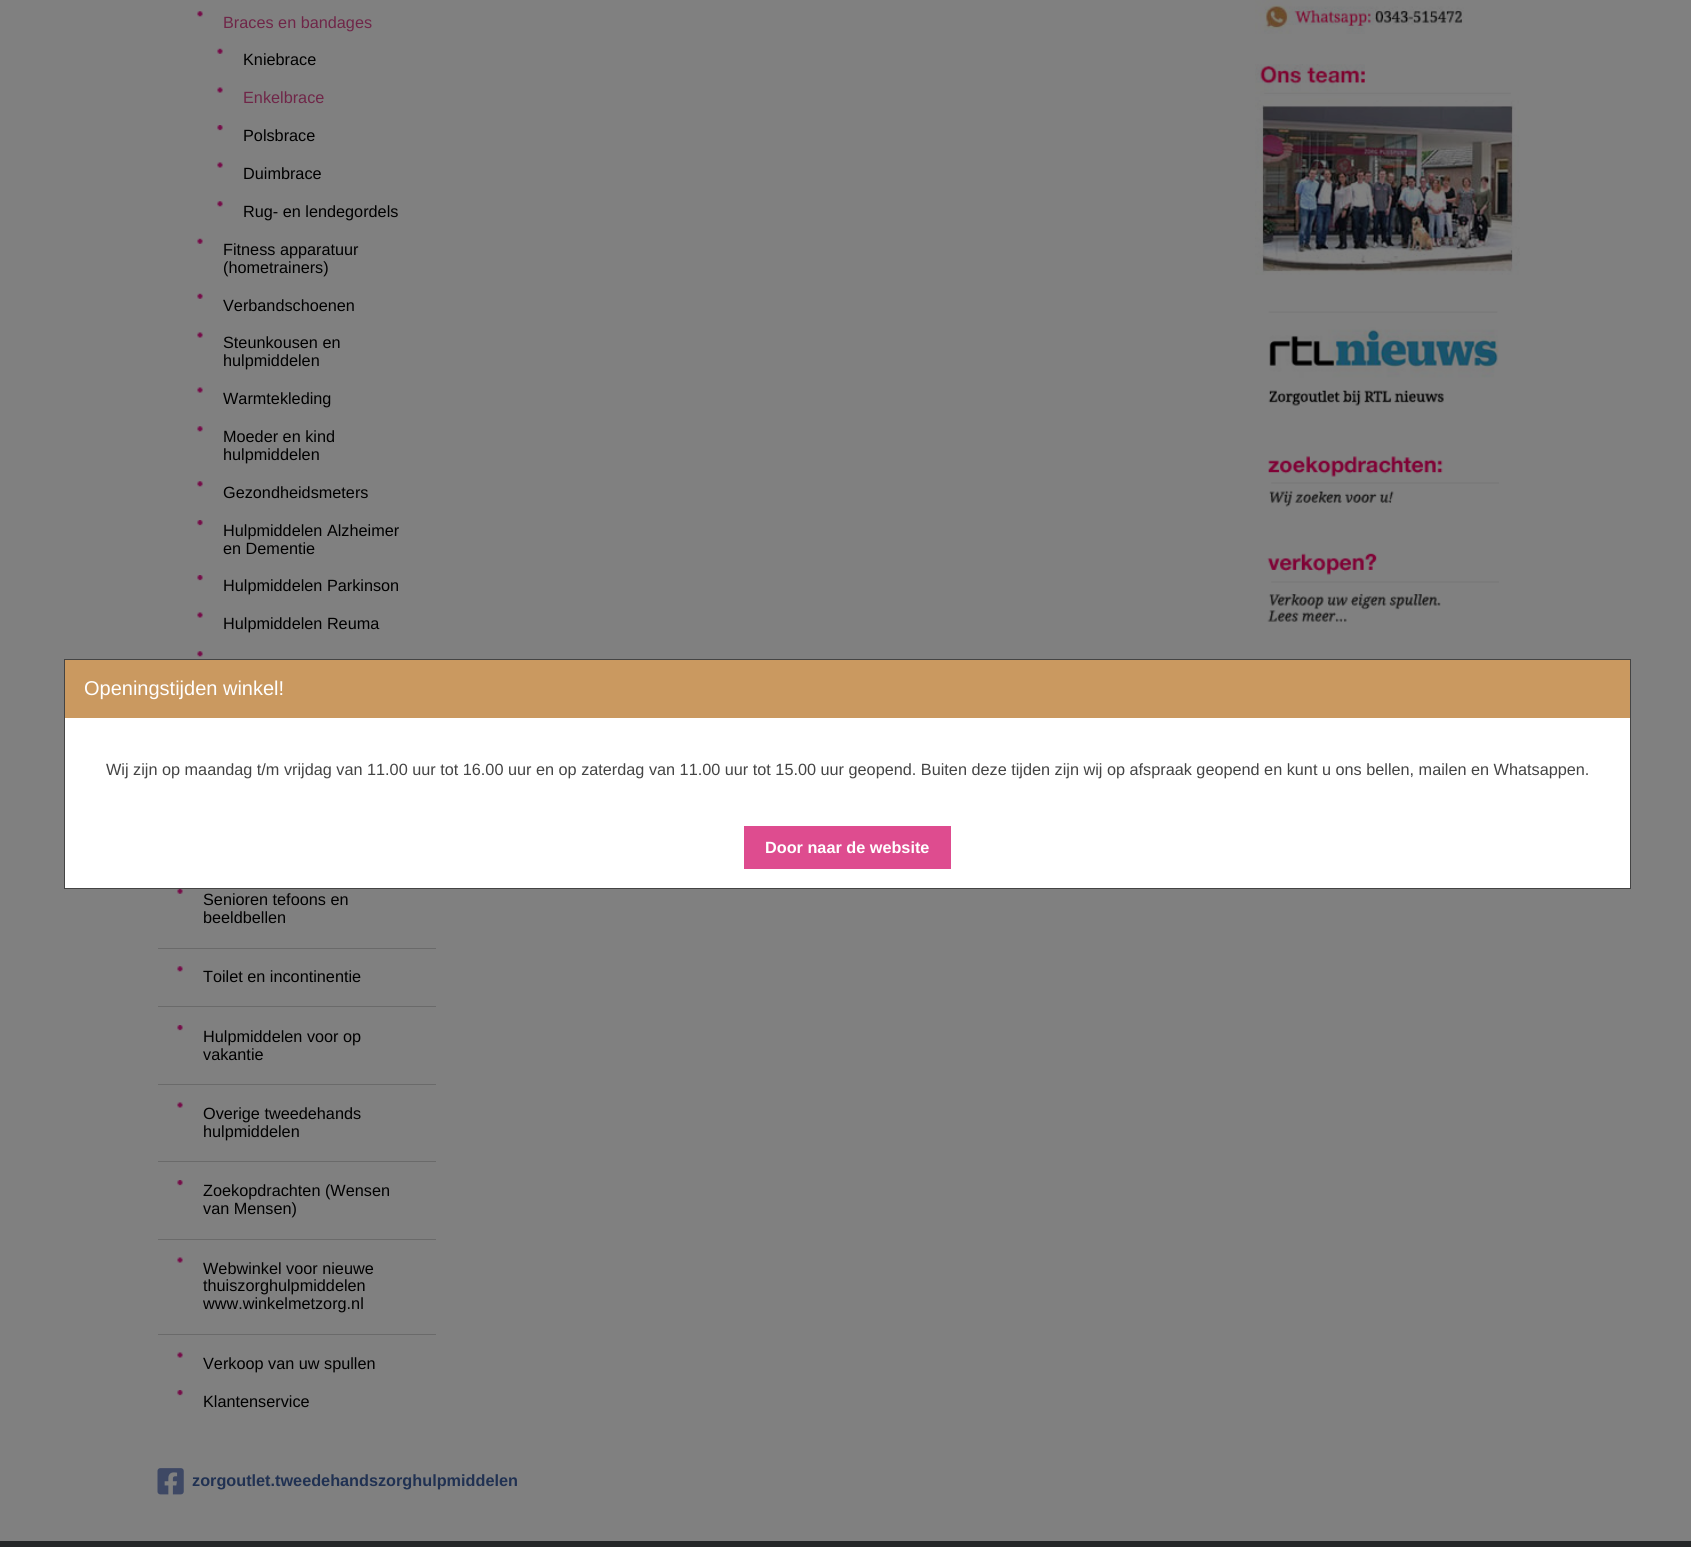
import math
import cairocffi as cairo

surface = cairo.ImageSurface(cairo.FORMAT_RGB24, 1691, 1547)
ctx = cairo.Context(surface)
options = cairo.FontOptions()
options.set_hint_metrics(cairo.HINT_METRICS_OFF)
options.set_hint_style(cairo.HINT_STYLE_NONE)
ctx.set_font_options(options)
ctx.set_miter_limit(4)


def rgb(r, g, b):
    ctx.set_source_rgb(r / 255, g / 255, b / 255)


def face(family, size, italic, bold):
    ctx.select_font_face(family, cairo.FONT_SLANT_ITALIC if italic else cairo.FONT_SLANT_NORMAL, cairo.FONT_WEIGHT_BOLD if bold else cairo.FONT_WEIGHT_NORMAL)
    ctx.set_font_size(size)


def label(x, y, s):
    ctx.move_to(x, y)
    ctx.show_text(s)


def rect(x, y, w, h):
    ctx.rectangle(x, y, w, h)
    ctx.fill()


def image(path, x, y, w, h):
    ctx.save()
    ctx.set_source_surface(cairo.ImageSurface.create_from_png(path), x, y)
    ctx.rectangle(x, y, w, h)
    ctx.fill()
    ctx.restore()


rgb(128, 128, 128)
ctx.paint()
image('image0.png', 197, 11, 6, 6)
face('Liberation Sans', 16.25, 0, 0)
rgb(111, 38, 72)
label(223, 28, 'Braces en bandages')
image('image1.png', 217, 48, 6, 6)
rgb(0, 0, 0)
label(243, 65, 'Kniebrace')
image('image2.png', 217, 87, 6, 6)
rgb(111, 38, 72)
label(243, 103, 'Enkelbrace')
image('image3.png', 217, 125, 6, 6)
rgb(0, 0, 0)
label(243, 141, 'Polsbrace')
image('image2.png', 217, 162, 6, 6)
label(243, 179, 'Duimbrace')
image('image0.png', 217, 201, 6, 6)
label(243, 217, 'Rug- en lendegordels')
image('image1.png', 197, 238, 6, 6)
label(223, 255, 'Fitness apparatuur')
label(223, 273, '(hometrainers)')
image('image1.png', 197, 293, 6, 6)
label(223, 311, 'Verbandschoenen')
image('image2.png', 197, 332, 6, 6)
label(223, 348, 'Steunkousen en')
label(223, 366, 'hulpmiddelen')
image('image2.png', 197, 387, 6, 6)
label(223, 404, 'Warmtekleding')
image('image0.png', 197, 426, 6, 6)
label(223, 442, 'Moeder en kind')
label(223, 460, 'hulpmiddelen')
image('image0.png', 197, 481, 6, 6)
label(223, 498, 'Gezondheidsmeters')
image('image3.png', 197, 520, 6, 6)
label(223, 536, 'Hulpmiddelen Alzheimer')
label(223, 554, 'en Dementie')
image('image3.png', 197, 575, 6, 6)
label(223, 591, 'Hulpmiddelen Parkinson')
image('image2.png', 197, 612, 6, 6)
label(223, 629, 'Hulpmiddelen Reuma')
image('image0.png', 197, 651, 6, 6)
image('image4.png', 177, 889, 6, 5)
label(203, 905, 'Senioren tefoons en')
label(203, 923, 'beeldbellen')
rgb(106, 106, 106)
rect(158, 948, 278, 1)
image('image0.png', 177, 966, 6, 6)
rgb(0, 0, 0)
label(203, 982, 'Toilet en incontinentie')
rgb(106, 106, 106)
rect(158, 1006, 278, 1)
image('image3.png', 177, 1025, 6, 6)
rgb(0, 0, 0)
label(203, 1042, 'Hulpmiddelen voor op')
label(203, 1060, 'vakantie')
rgb(106, 106, 106)
rect(158, 1084, 278, 1)
image('image2.png', 177, 1102, 6, 6)
rgb(0, 0, 0)
label(203, 1119, 'Overige tweedehands')
label(203, 1137, 'hulpmiddelen')
rgb(106, 106, 106)
rect(158, 1161, 278, 1)
image('image3.png', 177, 1180, 6, 6)
rgb(0, 0, 0)
label(203, 1196, 'Zoekopdrachten (Wensen')
label(203, 1214, 'van Mensen)')
rgb(106, 106, 106)
rect(158, 1239, 278, 1)
image('image2.png', 177, 1257, 6, 6)
rgb(0, 0, 0)
label(203, 1274, 'Webwinkel voor nieuwe')
label(203, 1291, 'thuiszorghulpmiddelen')
label(203, 1309, 'www.winkelmetzorg.nl')
rgb(106, 106, 106)
rect(158, 1334, 278, 1)
image('image2.png', 177, 1352, 6, 6)
rgb(0, 0, 0)
label(203, 1369, 'Verkoop van uw spullen')
image('image3.png', 177, 1390, 6, 6)
label(203, 1407, 'Klantenservice')
image('image5.png', 157, 1468, 27, 27)
face('Liberation Sans', 16.25, 0, 1)
rgb(32, 49, 82)
label(192, 1486, 'zorgoutlet.tweedehandszorghulpmiddelen')
image('image6.png', 1255, 0, 209, 34)
image('image7.png', 1255, 64, 265, 211)
image('image8.png', 1268, 311, 231, 95)
image('image9.png', 1268, 456, 231, 51)
image('image10.png', 1267, 553, 232, 69)
rgb(37, 39, 40)
rect(0, 1541, 1691, 6)
rgb(255, 255, 255)
rect(65, 718, 1565, 170)
ctx.rectangle(64.5, 659.5, 1566, 229)
rgb(68, 68, 68)
ctx.set_line_width(1)
ctx.stroke()
rgb(202, 153, 96)
rect(65, 660, 1565, 58)
face('Liberation Sans', 20, 0, 0)
rgb(255, 255, 255)
label(84, 695, 'Openingstijden winkel!')
face('Liberation Sans', 16.25, 0, 0)
rgb(68, 68, 68)
label(106, 775, 'Wij zijn op maandag t/m vrijdag van 11.00 uur tot 16.00 uur en op zaterdag van 11.00 uur tot 15.00 uur geopend. Buiten deze tijden zijn wij op afspraak geopend en kunt u ons bellen, mailen en Whatsappen.')
rgb(222, 76, 143)
rect(744, 826, 207, 43)
face('Liberation Sans', 16.25, 0, 1)
rgb(255, 255, 255)
label(765, 853, 'Door naar de website')
surface.write_to_png('render.png')
